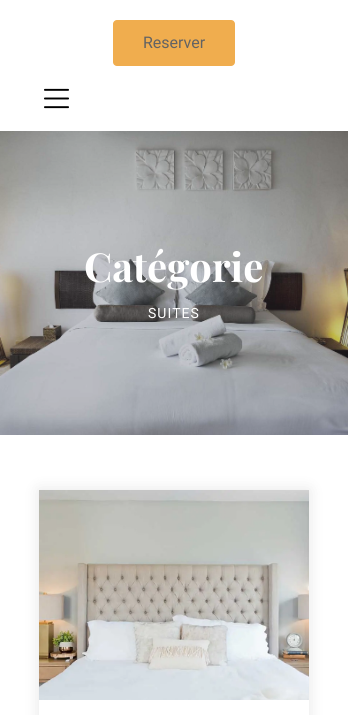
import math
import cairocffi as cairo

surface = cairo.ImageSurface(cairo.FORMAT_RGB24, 348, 715)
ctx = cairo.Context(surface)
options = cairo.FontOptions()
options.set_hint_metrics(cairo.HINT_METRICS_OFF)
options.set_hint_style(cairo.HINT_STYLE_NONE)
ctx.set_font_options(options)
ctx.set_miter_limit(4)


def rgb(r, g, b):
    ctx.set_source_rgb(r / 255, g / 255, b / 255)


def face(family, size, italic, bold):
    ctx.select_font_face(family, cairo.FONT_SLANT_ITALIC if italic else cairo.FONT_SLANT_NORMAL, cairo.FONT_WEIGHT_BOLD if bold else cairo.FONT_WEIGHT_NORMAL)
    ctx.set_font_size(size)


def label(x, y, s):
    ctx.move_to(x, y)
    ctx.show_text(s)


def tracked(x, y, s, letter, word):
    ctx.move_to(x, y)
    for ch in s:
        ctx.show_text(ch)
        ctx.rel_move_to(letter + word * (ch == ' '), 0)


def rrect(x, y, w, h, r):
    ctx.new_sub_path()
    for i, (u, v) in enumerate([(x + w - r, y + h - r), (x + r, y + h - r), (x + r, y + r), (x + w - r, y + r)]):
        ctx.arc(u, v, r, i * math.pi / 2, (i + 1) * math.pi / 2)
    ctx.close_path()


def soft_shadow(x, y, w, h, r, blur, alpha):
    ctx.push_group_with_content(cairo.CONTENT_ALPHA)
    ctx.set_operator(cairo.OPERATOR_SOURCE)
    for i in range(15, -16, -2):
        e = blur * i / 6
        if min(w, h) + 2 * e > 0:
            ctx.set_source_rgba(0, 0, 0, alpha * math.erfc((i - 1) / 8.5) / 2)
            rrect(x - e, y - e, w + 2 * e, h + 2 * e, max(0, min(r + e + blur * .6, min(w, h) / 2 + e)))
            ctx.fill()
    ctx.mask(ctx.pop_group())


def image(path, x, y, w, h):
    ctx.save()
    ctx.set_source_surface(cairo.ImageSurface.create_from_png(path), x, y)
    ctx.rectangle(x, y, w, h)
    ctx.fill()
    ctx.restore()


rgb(255, 255, 255)
ctx.paint()
rgb(240, 173, 78)
rrect(113, 20, 122, 46, 4)
ctx.fill()
face('Roboto', 16, 0, 0)
rgb(99, 99, 99)
label(143, 48, 'Reserver')
image('image0.png', 44, 88, 25, 21)
image('image1.png', 0, 131, 348, 304)
face('Playfair Display', 40, 0, 1)
rgb(255, 255, 255)
label(84, 282, 'Catégorie')
face('Roboto', 14, 0, 0)
tracked(148, 318, 'SUITES', 1, 0)
ctx.save()
ctx.set_fill_rule(cairo.FILL_RULE_EVEN_ODD)
ctx.new_path()
ctx.move_to(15, 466)
ctx.line_to(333, 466)
ctx.line_to(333, 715)
ctx.line_to(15, 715)
ctx.close_path()
ctx.move_to(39, 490)
ctx.line_to(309, 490)
ctx.line_to(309, 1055)
ctx.line_to(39, 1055)
ctx.close_path()
ctx.clip()
rgb(0, 0, 0)
soft_shadow(39, 490, 270, 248, 0, 7.5, 0.1)
ctx.restore()
image('image2.png', 39, 490, 270, 210)
surface.write_to_png('render.png')
